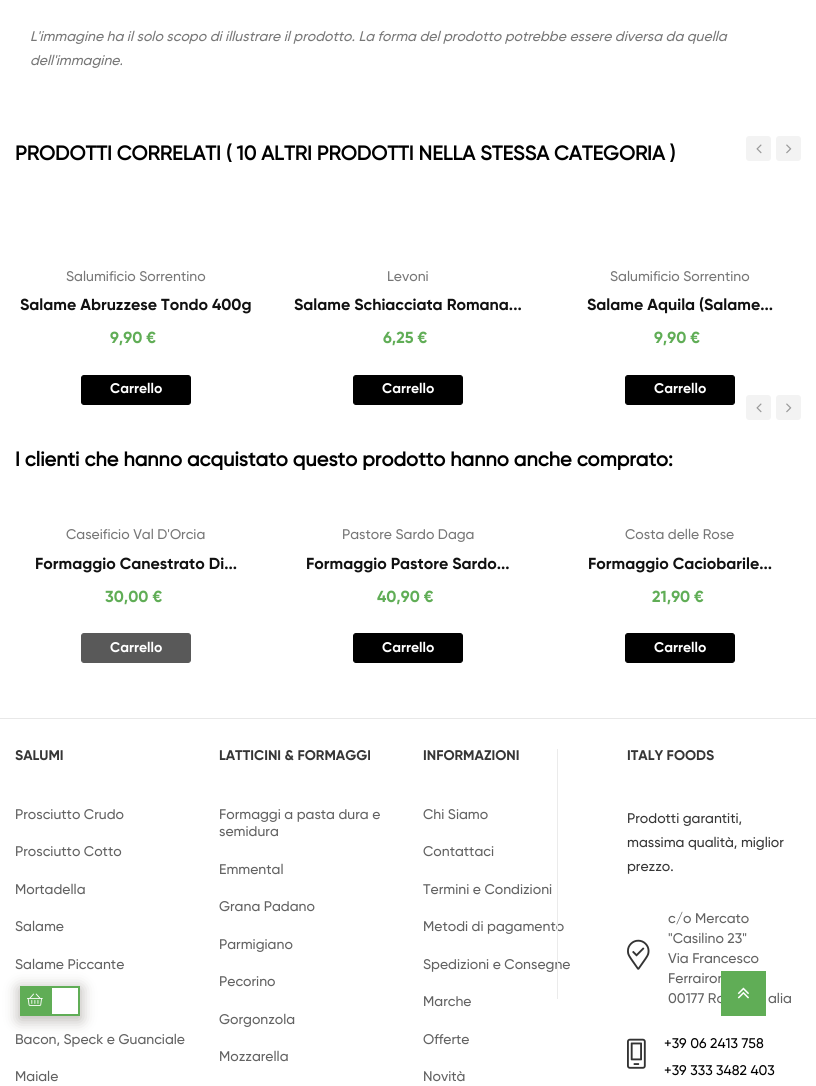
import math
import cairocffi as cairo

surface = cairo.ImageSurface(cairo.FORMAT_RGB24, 816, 1086)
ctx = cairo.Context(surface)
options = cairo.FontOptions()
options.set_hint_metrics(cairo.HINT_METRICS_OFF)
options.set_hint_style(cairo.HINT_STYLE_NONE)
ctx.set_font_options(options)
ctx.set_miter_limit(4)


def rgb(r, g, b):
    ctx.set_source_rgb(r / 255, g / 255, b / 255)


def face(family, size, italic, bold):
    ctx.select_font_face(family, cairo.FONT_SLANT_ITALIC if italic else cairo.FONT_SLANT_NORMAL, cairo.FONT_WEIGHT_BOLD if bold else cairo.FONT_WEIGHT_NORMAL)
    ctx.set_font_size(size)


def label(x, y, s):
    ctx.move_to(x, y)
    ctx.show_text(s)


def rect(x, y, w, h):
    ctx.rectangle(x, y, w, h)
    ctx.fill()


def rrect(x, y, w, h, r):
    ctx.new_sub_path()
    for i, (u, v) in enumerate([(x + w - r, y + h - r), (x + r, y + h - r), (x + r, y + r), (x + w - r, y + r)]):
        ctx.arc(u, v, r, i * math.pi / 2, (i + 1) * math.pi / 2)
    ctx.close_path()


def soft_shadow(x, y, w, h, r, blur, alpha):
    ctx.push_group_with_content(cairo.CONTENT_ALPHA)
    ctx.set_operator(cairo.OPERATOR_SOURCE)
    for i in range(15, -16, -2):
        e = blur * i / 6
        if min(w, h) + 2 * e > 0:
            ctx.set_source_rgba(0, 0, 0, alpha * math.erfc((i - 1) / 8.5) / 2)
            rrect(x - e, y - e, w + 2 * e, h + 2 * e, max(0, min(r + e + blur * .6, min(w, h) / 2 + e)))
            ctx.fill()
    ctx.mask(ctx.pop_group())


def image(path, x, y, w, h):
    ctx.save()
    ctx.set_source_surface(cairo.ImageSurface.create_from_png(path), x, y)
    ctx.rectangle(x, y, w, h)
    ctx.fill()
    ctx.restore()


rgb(255, 255, 255)
ctx.paint()
face('Gilroy Medium', 14, 1, 0)
rgb(119, 119, 119)
label(30, 41, 'L\'immagine ha il solo scopo di illustrare il prodotto. La forma del prodotto potrebbe essere diversa da quella')
label(30, 65, 'dell\'immagine.')
face('Gilroy', 20, 0, 1)
rgb(0, 0, 0)
label(15, 160, 'PRODOTTI CORRELATI ( 10 ALTRI PRODOTTI NELLA STESSA CATEGORIA )')
rgb(243, 243, 243)
rrect(746, 136, 25, 25, 3)
ctx.fill()
image('image0.png', 756, 144, 6, 10)
rrect(776, 136, 25, 25, 3)
ctx.fill()
image('image1.png', 786, 144, 6, 10)
face('Gilroy Medium', 14, 0, 0)
rgb(119, 119, 119)
label(66, 281, 'Salumificio Sorrentino')
face('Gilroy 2', 16, 0, 1)
rgb(17, 17, 17)
label(20, 310, 'Salame Abruzzese Tondo 400g')
rgb(96, 173, 86)
label(110, 343, '9,90 €')
rgb(0, 0, 0)
rrect(81.5, 375.5, 109, 29, 2.5)
ctx.fill_preserve()
ctx.set_line_width(1)
ctx.stroke()
face('Gilroy 2', 14, 0, 1)
rgb(255, 255, 255)
label(110, 393, 'Carrello')
face('Gilroy Medium', 14, 0, 0)
rgb(119, 119, 119)
label(387, 281, 'Levoni')
face('Gilroy 2', 16, 0, 1)
rgb(17, 17, 17)
label(294, 310, 'Salame Schiacciata Romana...')
rgb(96, 173, 86)
label(383, 343, '6,25 €')
rgb(0, 0, 0)
rrect(353.5, 375.5, 109, 29, 2.5)
ctx.fill_preserve()
ctx.stroke()
face('Gilroy 2', 14, 0, 1)
rgb(255, 255, 255)
label(382, 393, 'Carrello')
face('Gilroy Medium', 14, 0, 0)
rgb(119, 119, 119)
label(610, 281, 'Salumificio Sorrentino')
face('Gilroy 2', 16, 0, 1)
rgb(17, 17, 17)
label(587, 310, 'Salame Aquila (Salame...')
rgb(96, 173, 86)
label(654, 343, '9,90 €')
rgb(0, 0, 0)
rrect(625.5, 375.5, 109, 29, 2.5)
ctx.fill_preserve()
ctx.stroke()
face('Gilroy 2', 14, 0, 1)
rgb(255, 255, 255)
label(654, 393, 'Carrello')
face('Gilroy', 20, 0, 1)
rgb(0, 0, 0)
label(15, 466, 'I clienti che hanno acquistato questo prodotto hanno anche comprato:')
rgb(243, 243, 243)
rrect(746, 395, 25, 25, 3)
ctx.fill()
image('image0.png', 756, 403, 6, 10)
rrect(776, 395, 25, 25, 3)
ctx.fill()
image('image1.png', 786, 403, 6, 10)
face('Gilroy Medium', 14, 0, 0)
rgb(119, 119, 119)
label(66, 539, 'Caseificio Val D\'Orcia')
face('Gilroy 2', 16, 0, 1)
rgb(17, 17, 17)
label(35, 569, 'Formaggio Canestrato Di...')
rgb(96, 173, 86)
label(105, 602, '30,00 €')
rgb(89, 89, 89)
rrect(81.5, 633.5, 109, 29, 2.5)
ctx.fill_preserve()
ctx.stroke()
face('Gilroy 2', 14, 0, 1)
rgb(255, 255, 255)
label(110, 652, 'Carrello')
face('Gilroy Medium', 14, 0, 0)
rgb(119, 119, 119)
label(342, 539, 'Pastore Sardo Daga')
face('Gilroy 2', 16, 0, 1)
rgb(17, 17, 17)
label(306, 569, 'Formaggio Pastore Sardo...')
rgb(96, 173, 86)
label(377, 602, '40,90 €')
rgb(0, 0, 0)
rrect(353.5, 633.5, 109, 29, 2.5)
ctx.fill_preserve()
ctx.stroke()
face('Gilroy 2', 14, 0, 1)
rgb(255, 255, 255)
label(382, 652, 'Carrello')
face('Gilroy Medium', 14, 0, 0)
rgb(119, 119, 119)
label(625, 539, 'Costa delle Rose')
face('Gilroy 2', 16, 0, 1)
rgb(17, 17, 17)
label(588, 569, 'Formaggio Caciobarile...')
rgb(96, 173, 86)
label(652, 602, '21,90 €')
rgb(0, 0, 0)
rrect(625.5, 633.5, 109, 29, 2.5)
ctx.fill_preserve()
ctx.stroke()
face('Gilroy 2', 14, 0, 1)
rgb(255, 255, 255)
label(654, 652, 'Carrello')
rgb(232, 232, 232)
rect(0, 718, 816, 1)
rgb(54, 54, 54)
label(15, 760, 'SALUMI')
face('Gilroy Medium', 14, 0, 0)
rgb(98, 98, 98)
label(15, 819, 'Prosciutto Crudo')
label(15, 856, 'Prosciutto Cotto')
label(15, 894, 'Mortadella')
label(15, 931, 'Salame')
label(15, 969, 'Salame Piccante')
label(15, 1044, 'Bacon, Speck e Guanciale')
label(15, 1081, 'Maiale')
face('Gilroy 2', 14, 0, 1)
rgb(54, 54, 54)
label(219, 760, 'LATTICINI & FORMAGGI')
face('Gilroy Medium', 14, 0, 0)
rgb(98, 98, 98)
label(219, 819, 'Formaggi a pasta dura e')
label(219, 836, 'semidura')
label(219, 874, 'Emmental')
label(219, 911, 'Grana Padano')
label(219, 949, 'Parmigiano')
label(219, 986, 'Pecorino')
label(219, 1024, 'Gorgonzola')
label(219, 1061, 'Mozzarella')
face('Gilroy 2', 14, 0, 1)
rgb(54, 54, 54)
label(423, 760, 'INFORMAZIONI')
face('Gilroy Medium', 14, 0, 0)
rgb(98, 98, 98)
label(423, 819, 'Chi Siamo')
label(423, 856, 'Contattaci')
label(423, 894, 'Termini e Condizioni')
label(423, 931, 'Metodi di pagamento')
label(423, 969, 'Spedizioni e Consegne')
label(423, 1006, 'Marche')
label(423, 1044, 'Offerte')
label(423, 1081, 'Novità')
rgb(235, 235, 235)
rect(557, 749, 1, 250)
face('Gilroy 2', 14, 0, 1)
rgb(54, 54, 54)
label(627, 760, 'ITALY FOODS')
face('Gilroy Medium', 14, 0, 0)
label(627, 823, 'Prodotti garantiti,')
label(627, 847, 'massima qualità, miglior')
label(627, 871, 'prezzo.')
image('image2.png', 627, 939, 23, 31)
rgb(98, 98, 98)
label(668, 923, 'c/o Mercato')
label(668, 943, '"Casilino 23"')
label(668, 963, 'Via Francesco')
label(668, 983, 'Ferrairon')
label(668, 1003, '00177 Ro')
label(768, 1003, 'alia')
image('image3.png', 627, 1038, 19, 31)
rgb(0, 0, 0)
label(664, 1048, '+39 06 2413 758')
label(664, 1075, '+39 333 3482 403')
rgb(96, 173, 86)
rect(721, 971, 45, 45)
image('image4.png', 737, 987, 12, 12)
rgb(142, 137, 130)
soft_shadow(19, 988, 62, 32, 0, 7.5, 0.62)
rgb(96, 173, 86)
rect(20, 986, 30, 30)
image('image5.png', 27, 993, 16, 13)
rgb(255, 255, 255)
ctx.rectangle(51, 987, 28, 28)
ctx.fill_preserve()
rgb(96, 173, 86)
ctx.set_line_width(2)
ctx.stroke()
surface.write_to_png('render.png')
